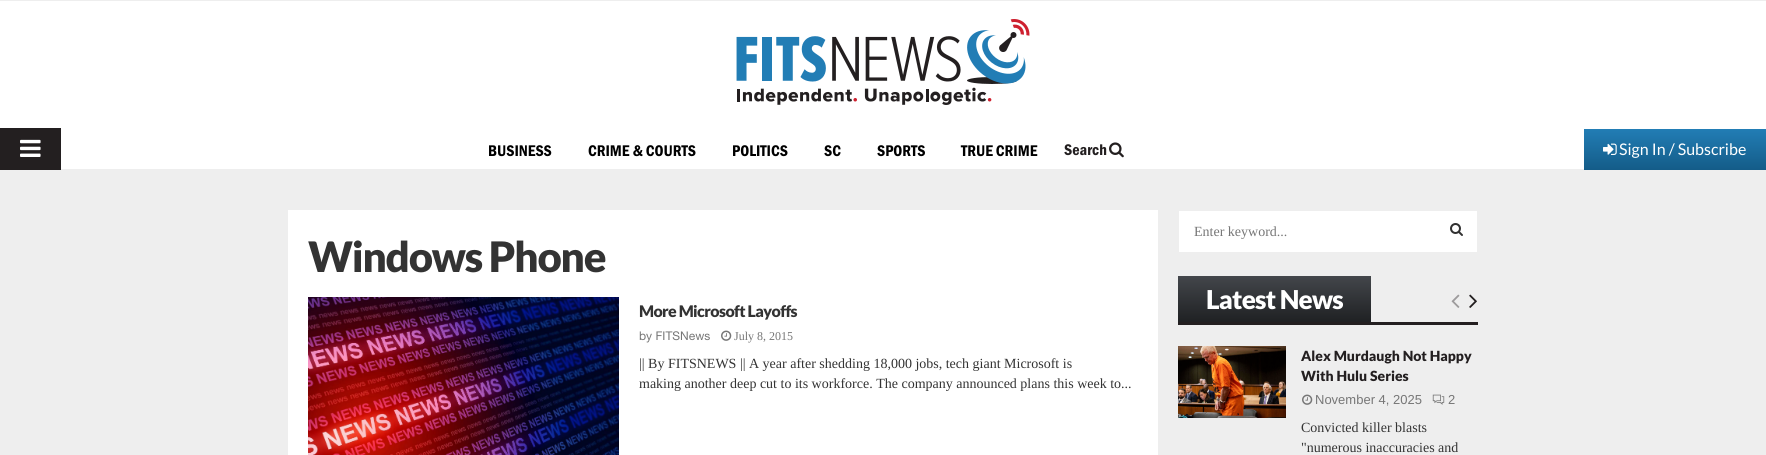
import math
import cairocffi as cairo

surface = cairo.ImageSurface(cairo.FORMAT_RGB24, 1766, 455)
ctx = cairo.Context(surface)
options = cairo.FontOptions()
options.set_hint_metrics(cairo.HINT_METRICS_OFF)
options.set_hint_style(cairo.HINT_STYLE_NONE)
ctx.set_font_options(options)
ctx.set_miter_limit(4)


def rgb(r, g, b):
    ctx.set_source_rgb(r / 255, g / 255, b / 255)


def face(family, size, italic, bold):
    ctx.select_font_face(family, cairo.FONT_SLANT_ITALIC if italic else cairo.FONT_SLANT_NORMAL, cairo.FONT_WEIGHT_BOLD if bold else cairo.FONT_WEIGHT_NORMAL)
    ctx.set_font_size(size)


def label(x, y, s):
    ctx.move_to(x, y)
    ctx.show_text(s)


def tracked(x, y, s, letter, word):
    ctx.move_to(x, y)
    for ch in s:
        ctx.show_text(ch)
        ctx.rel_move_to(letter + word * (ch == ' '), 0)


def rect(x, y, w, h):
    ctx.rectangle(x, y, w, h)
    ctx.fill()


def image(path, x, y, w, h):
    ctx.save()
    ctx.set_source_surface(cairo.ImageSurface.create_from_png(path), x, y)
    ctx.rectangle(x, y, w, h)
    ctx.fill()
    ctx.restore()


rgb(238, 238, 238)
ctx.paint()
rgb(255, 255, 255)
rect(0, 1, 1766, 168)
image('image0.png', 736, 19, 294, 86)
rgb(35, 31, 32)
rect(0, 129, 60, 40)
image('image1.png', 20, 139, 21, 18)
ctx.rectangle(-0.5, 128.5, 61, 41)
ctx.set_line_width(1)
ctx.stroke()
face('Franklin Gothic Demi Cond', 16, 0, 0)
rgb(0, 0, 0)
label(488, 156, 'BUSINESS')
label(588, 156, 'CRIME & COURTS')
label(732, 156, 'POLITICS')
label(824, 156, 'SC')
label(877, 156, 'SPORTS')
label(961, 156, 'TRUE CRIME')
rgb(35, 31, 32)
label(1064, 155, 'Search')
image('image2.png', 1109, 142, 15, 16)
gradient = cairo.LinearGradient(1675, 129, 1675, 170)
gradient.add_color_stop_rgba(0, 0.133, 0.49, 0.71, 1)
gradient.add_color_stop_rgba(1, 0.078, 0.361, 0.533, 1)
ctx.set_source(gradient)
rect(1584, 129, 182, 41)
image('image3.png', 1603, 143, 14, 12)
face('Lato', 16, 0, 0)
rgb(255, 255, 255)
label(1619, 155, 'Sign In / Subscribe')
rect(288, 210, 870, 245)
face('Lato Black', 42, 0, 0)
rgb(51, 51, 51)
tracked(308, 272, 'Windows Phone', -1.25, 0)
image('image4.png', 308, 297, 311, 158)
face('Lato Black', 16, 0, 0)
tracked(639, 317, 'More Microsoft Layoffs', -0.6, 0)
face('Helvetica Neue', 12, 0, 0)
rgb(118, 118, 118)
label(639, 340, 'by FITSNews')
image('image5.png', 721, 330, 11, 11)
face('Liberation Serif', 12, 0, 0)
label(734, 340, 'July 8, 2015')
face('Liberation Serif', 14, 0, 0)
rgb(51, 51, 51)
label(639, 368, '|| By FITSNEWS || A year after shedding 18,000 jobs, tech giant Microsoft is')
label(639, 388, 'making another deep cut to its workforce. The company announced plans this week to...')
rgb(255, 255, 255)
rect(1179, 211, 298, 41)
rgb(118, 118, 118)
label(1194, 236, 'Enter keyword...')
image('image6.png', 1450, 223, 13, 13)
gradient = cairo.LinearGradient(1275, 276, 1275, 322)
gradient.add_color_stop_rgba(0, 0.263, 0.275, 0.294, 1)
gradient.add_color_stop_rgba(1, 0.122, 0.129, 0.137, 1)
ctx.set_source(gradient)
rect(1178, 276, 193, 46)
face('Lato Black', 26, 0, 0)
rgb(255, 255, 255)
tracked(1206, 309, 'Latest News', -0.75, 0)
rgb(35, 31, 32)
rect(1178, 322, 300, 3)
image('image7.png', 1451, 294, 9, 14)
image('image8.png', 1469, 294, 8, 14)
image('image9.png', 1178, 346, 108, 72)
face('Lato Black', 14, 0, 0)
label(1301, 361, 'Alex Murdaugh Not Happy')
label(1301, 381, 'With Hulu Series')
image('image10.png', 1302, 394, 11, 11)
face('Liberation Sans', 13, 0, 0)
rgb(118, 118, 118)
label(1315, 404, 'November 4, 2025')
image('image11.png', 1432, 394, 13, 11)
label(1448, 404, '2')
face('Liberation Serif', 14, 0, 0)
rgb(51, 51, 51)
label(1301, 432, 'Convicted killer blasts')
label(1301, 452, '"numerous inaccuracies and')
surface.write_to_png('render.png')
